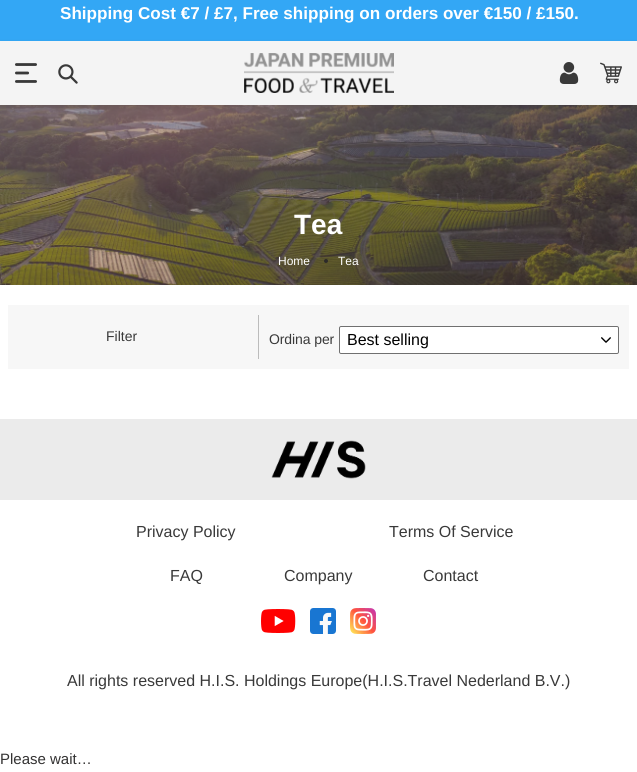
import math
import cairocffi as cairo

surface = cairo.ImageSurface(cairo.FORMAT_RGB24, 637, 772)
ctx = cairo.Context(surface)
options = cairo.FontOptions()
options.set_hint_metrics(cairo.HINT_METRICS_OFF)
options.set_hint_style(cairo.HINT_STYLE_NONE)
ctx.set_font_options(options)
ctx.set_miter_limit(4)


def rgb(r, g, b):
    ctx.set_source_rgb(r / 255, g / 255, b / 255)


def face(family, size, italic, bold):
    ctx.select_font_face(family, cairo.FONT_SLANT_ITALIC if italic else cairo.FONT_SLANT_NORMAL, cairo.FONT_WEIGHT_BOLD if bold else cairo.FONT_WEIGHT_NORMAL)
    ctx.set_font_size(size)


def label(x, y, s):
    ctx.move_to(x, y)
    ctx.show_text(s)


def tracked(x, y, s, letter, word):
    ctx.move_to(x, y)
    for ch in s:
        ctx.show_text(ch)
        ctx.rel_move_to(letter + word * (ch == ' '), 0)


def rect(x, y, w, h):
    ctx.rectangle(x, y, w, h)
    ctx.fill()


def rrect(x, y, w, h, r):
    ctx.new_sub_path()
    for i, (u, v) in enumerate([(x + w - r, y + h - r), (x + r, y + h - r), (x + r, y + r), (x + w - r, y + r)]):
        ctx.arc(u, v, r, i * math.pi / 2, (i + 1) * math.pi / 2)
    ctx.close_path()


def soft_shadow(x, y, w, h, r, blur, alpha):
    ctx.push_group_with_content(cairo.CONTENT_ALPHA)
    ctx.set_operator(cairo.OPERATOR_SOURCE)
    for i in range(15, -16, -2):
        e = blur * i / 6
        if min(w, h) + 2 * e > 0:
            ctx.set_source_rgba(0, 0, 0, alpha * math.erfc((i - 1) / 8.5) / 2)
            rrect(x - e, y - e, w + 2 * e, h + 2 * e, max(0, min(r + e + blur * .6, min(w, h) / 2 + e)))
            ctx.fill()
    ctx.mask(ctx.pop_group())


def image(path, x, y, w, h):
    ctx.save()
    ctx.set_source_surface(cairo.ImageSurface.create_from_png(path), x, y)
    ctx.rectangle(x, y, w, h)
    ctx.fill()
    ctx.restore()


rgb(255, 255, 255)
ctx.paint()
rgb(51, 167, 245)
rect(0, 0, 637, 41)
face('Liberation Sans', 17.1, 0, 1)
rgb(255, 255, 255)
label(60, 19, 'Shipping Cost €7 / £7, Free shipping on orders over €150 / £150.')
image('image5.png', 0, 105, 637, 180)
rgb(0, 0, 0)
soft_shadow(0, 44, 637, 64, 0, 3, 0.11)
rgb(244, 244, 244)
rect(0, 41, 637, 64)
image('image0.png', 244, 53, 150, 40)
image('image1.png', 15, 63, 22, 20)
image('image2.png', 58, 64, 20, 20)
image('image3.png', 559, 62, 20, 22)
image('image4.png', 600, 62, 22, 22)
face('Liberation Sans', 28, 0, 1)
rgb(255, 255, 255)
label(294, 234, 'Tea')
face('Liberation Sans', 12, 0, 0)
label(278, 265, 'Home')
rgb(44, 42, 41)
ctx.new_path()
ctx.arc(326, 261, 2, 0, 2 * math.pi)
ctx.fill()
rgb(255, 255, 255)
label(338, 265, 'Tea')
rgb(247, 247, 247)
rect(8, 305, 621, 64)
face('Liberation Sans', 14, 0, 0)
rgb(57, 57, 57)
label(106, 341, 'Filter')
rgb(188, 188, 188)
rect(258, 315, 1, 44)
rgb(57, 57, 57)
tracked(269, 344, 'Ordina per', -0.1, 0)
rgb(255, 255, 255)
rect(339, 326, 280, 28)
image('image6.png', 601, 337, 10, 6)
rrect(339.5, 326.5, 279, 27, 1.5)
rgb(112, 112, 112)
ctx.set_line_width(1)
ctx.stroke()
face('Liberation Sans', 16, 0, 0)
rgb(0, 0, 0)
label(347, 345, 'Best selling')
rgb(235, 235, 235)
rect(0, 419, 637, 81)
image('image7.png', 271, 440, 95, 39)
rgb(57, 57, 57)
label(136, 537, 'Privacy Policy')
label(389, 537, 'Terms Of Service')
label(170, 581, 'FAQ')
label(284, 581, 'Company')
label(423, 581, 'Contact')
image('image8.png', 261, 609, 35, 24)
image('image9.png', 310, 608, 26, 26)
image('image10.png', 350, 608, 26, 26)
label(67, 686, 'All rights reserved H.I.S. Holdings Europe(H.I.S.Travel Nederland B.V.)')
face('Liberation Sans', 15, 0, 0)
rgb(51, 50, 50)
label(0, 764, 'Please wait…')
surface.write_to_png('render.png')
